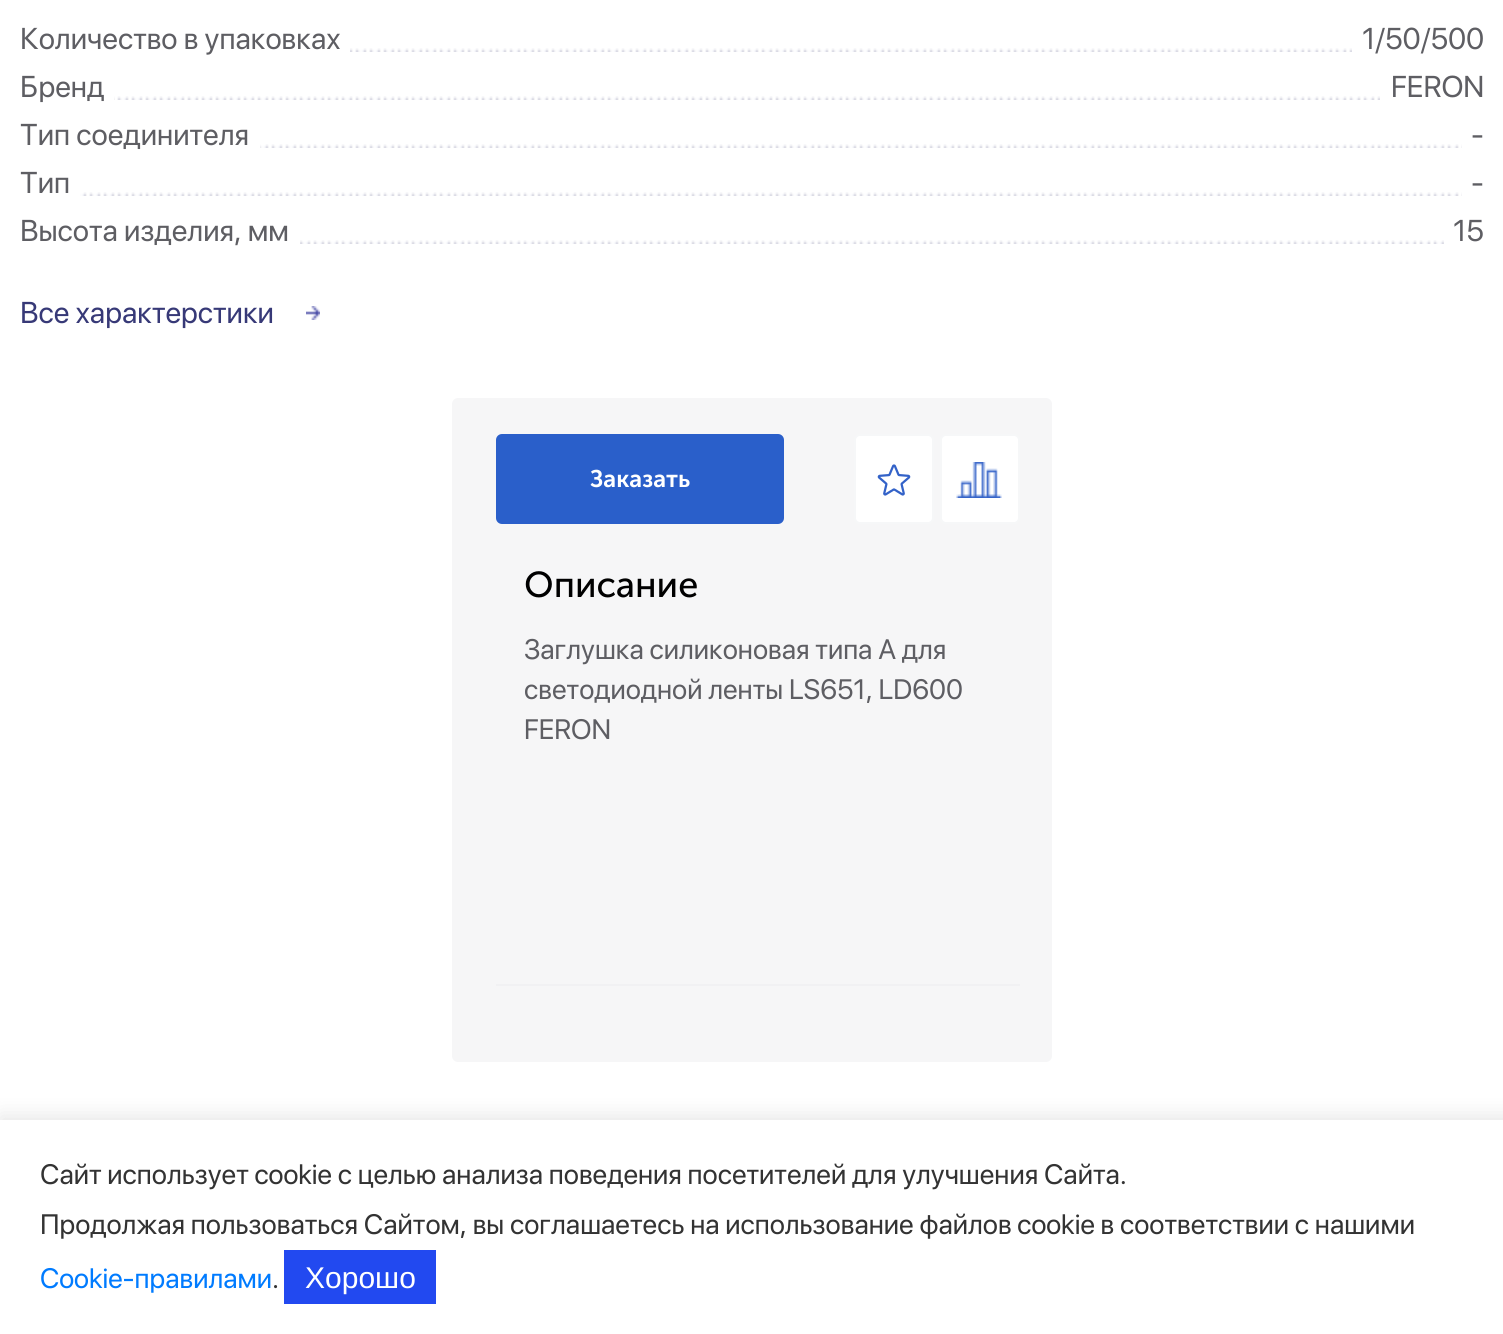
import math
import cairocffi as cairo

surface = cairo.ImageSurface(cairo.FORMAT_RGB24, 1503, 1334)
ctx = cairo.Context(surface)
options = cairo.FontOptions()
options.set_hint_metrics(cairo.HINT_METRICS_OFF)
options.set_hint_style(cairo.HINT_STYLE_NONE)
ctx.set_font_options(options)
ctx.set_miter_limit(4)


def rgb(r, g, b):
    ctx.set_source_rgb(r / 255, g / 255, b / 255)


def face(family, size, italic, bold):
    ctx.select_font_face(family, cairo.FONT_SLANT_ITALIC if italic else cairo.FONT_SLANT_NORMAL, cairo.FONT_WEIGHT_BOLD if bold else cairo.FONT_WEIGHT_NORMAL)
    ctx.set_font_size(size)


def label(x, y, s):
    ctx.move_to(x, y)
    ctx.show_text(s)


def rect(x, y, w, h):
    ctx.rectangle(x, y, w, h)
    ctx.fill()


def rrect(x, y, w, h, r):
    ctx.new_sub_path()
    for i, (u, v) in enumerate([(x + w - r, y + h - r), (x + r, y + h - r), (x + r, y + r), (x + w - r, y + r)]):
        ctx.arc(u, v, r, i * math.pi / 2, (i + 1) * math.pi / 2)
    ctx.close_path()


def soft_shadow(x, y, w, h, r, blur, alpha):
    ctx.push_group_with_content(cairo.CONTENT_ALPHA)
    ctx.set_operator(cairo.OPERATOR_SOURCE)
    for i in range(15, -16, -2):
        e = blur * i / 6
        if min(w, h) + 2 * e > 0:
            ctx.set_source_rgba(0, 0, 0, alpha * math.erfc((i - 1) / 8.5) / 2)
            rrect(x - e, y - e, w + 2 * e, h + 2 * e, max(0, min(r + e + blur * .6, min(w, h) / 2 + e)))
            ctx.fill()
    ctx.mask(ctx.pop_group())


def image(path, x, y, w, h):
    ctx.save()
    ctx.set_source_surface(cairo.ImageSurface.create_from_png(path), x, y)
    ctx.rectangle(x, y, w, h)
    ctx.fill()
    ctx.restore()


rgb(255, 255, 255)
ctx.paint()
image('image0.png', 350, 48, 1002, 4)
face('SF Pro Display', 30, 0, 0)
rgb(94, 94, 99)
label(20, 49, 'Количество в упаковках')
label(1362, 49, '1/50/500')
image('image1.png', 114, 96, 1266, 4)
label(20, 97, 'Бренд')
label(1391, 97, 'FERON')
image('image2.png', 260, 144, 1202, 4)
label(20, 145, 'Тип соединителя')
label(1471, 145, '-')
image('image3.png', 80, 192, 1382, 4)
label(20, 193, 'Тип')
label(1471, 193, '-')
image('image4.png', 300, 240, 1144, 4)
label(20, 241, 'Высота изделия, мм')
label(1453, 241, '15')
rgb(55, 57, 119)
label(20, 323, 'Все характерстики')
image('image5.png', 306, 306, 14, 14)
rgb(246, 246, 247)
rrect(452, 398, 600, 664, 6)
ctx.fill()
rgb(42, 95, 202)
rrect(497, 435, 286, 88, 5)
ctx.fill_preserve()
ctx.stroke()
face('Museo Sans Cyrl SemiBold', 24, 0, 0)
rgb(255, 255, 255)
label(590, 487, 'Заказать')
rrect(855, 435, 78, 88, 5)
ctx.fill_preserve()
rgb(246, 247, 248)
ctx.stroke()
image('image6.png', 877, 464, 34, 32)
rgb(255, 255, 255)
rrect(941, 435, 78, 88, 5)
ctx.fill_preserve()
rgb(246, 247, 248)
ctx.stroke()
image('image7.png', 956, 462, 46, 36)
rgb(241, 241, 243)
rect(496, 984, 524, 2)
face('Museo Sans Cyrl', 36, 0, 0)
rgb(0, 0, 0)
label(524, 597, 'Описание')
face('SF Pro Display', 28, 0, 0)
rgb(94, 94, 99)
label(524, 659, 'Заглушка силиконовая типа А для')
label(524, 699, 'светодиодной ленты LS651, LD600')
label(524, 739, 'FERON')
rgb(0, 0, 0)
soft_shadow(0, 1116, 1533, 214, 0, 10, 0.1)
rgb(255, 255, 255)
rect(0, 1120, 1503, 214)
rgb(51, 51, 51)
label(40, 1184, 'Сайт использует cookie с целью анализа поведения посетителей для улучшения Сайта.')
label(40, 1234, 'Продолжая пользоваться Сайтом, вы соглашаетесь на использование файлов cookie в соответствии с нашими')
rgb(0, 123, 255)
label(40, 1288, 'Cookie-правилами')
rgb(51, 51, 51)
label(272, 1288, '.')
rgb(34, 73, 240)
rect(284, 1250, 152, 54)
face('Liberation Sans', 30, 0, 0)
rgb(255, 255, 255)
label(305, 1288, 'Хорошо')
surface.write_to_png('render.png')
